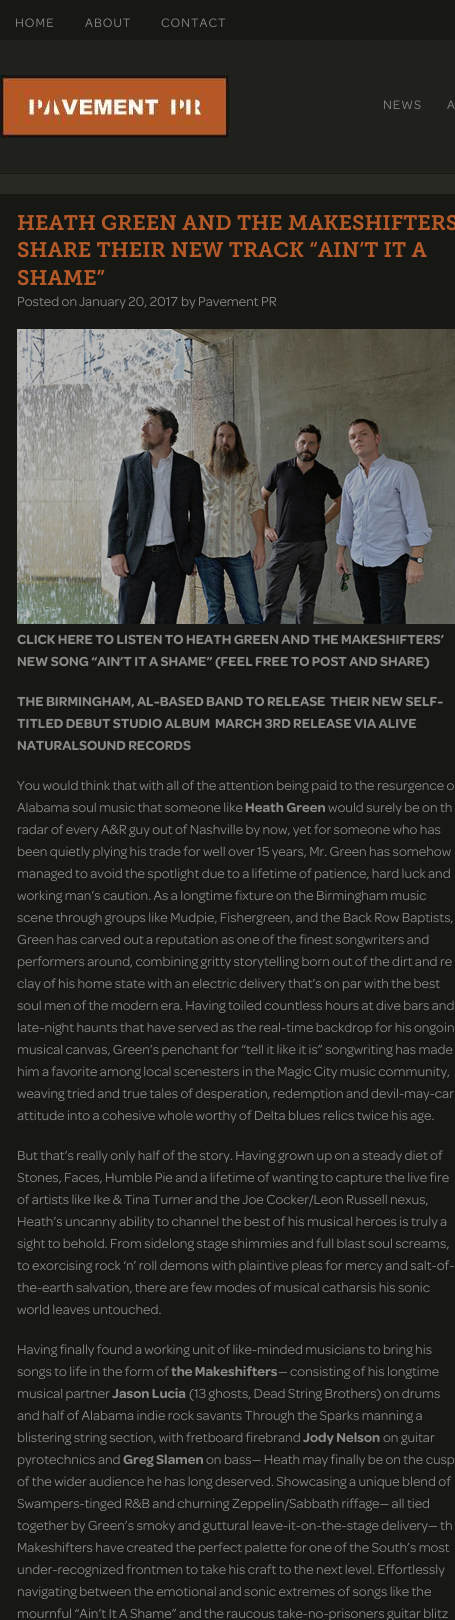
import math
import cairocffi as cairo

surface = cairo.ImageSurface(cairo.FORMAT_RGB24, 455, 1620)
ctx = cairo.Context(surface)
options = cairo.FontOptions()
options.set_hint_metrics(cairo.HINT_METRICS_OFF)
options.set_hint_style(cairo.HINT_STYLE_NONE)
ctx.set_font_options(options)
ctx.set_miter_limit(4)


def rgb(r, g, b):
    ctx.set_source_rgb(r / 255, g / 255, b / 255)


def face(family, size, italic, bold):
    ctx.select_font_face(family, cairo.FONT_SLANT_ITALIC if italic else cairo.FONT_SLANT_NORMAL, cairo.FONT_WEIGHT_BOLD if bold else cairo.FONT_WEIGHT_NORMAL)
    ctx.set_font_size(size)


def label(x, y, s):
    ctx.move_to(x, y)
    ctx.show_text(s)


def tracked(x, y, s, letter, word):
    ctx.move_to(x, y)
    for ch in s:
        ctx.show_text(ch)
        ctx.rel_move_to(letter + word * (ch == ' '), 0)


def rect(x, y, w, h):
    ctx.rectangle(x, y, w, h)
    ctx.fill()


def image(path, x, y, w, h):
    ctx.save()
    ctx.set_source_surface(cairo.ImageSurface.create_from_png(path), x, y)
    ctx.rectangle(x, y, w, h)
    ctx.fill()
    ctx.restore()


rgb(40, 41, 35)
ctx.paint()
rgb(23, 24, 20)
rect(0, 0, 455, 40)
face('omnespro', 13, 0, 0)
rgb(138, 139, 137)
tracked(15, 27, 'HOME', 1, 0)
tracked(85, 27, 'ABOUT', 1, 0)
tracked(161, 27, 'CONTACT', 1, 0)
rgb(32, 33, 28)
rect(0, 40, 455, 133)
rgb(23, 24, 20)
rect(0, 173, 455, 1)
image('image0.png', 0, 75, 229, 63)
rgb(138, 139, 137)
tracked(383, 109, 'NEWS', 1, 0)
tracked(447, 109, 'A', 1, 0)
rgb(23, 24, 20)
rect(0, 194, 455, 1426)
face('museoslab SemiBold', 21, 0, 0)
rgb(180, 89, 39)
label(17, 230, 'HEATH GREEN AND THE MAKESHIFTERS')
label(17, 257, 'SHARE THEIR NEW TRACK “AIN’T IT A')
label(17, 285, 'SHAME”')
face('omnespro', 14, 0, 0)
rgb(138, 139, 137)
label(17, 306, 'Posted on')
label(79, 306, 'January 20, 2017')
label(181, 306, 'by Pavement PR')
image('image1.png', 17, 329, 438, 295)
face('omnespro SemiBold', 14, 0, 0)
label(17, 644, 'CLICK HERE TO LISTEN TO HEATH GREEN AND THE MAKESHIFTERS’')
label(17, 666, 'NEW SONG “AIN’T IT A SHAME” (FEEL FREE TO POST AND SHARE)')
label(17, 706, 'THE BIRMINGHAM, AL-BASED BAND TO RELEASE  THEIR NEW SELF-')
label(17, 728, 'TITLED DEBUT STUDIO ALBUM  MARCH 3RD RELEASE VIA ALIVE')
label(17, 750, 'NATURALSOUND RECORDS')
face('omnespro', 14, 0, 0)
label(17, 790, 'You would think that with all of the attention being paid to the resurgence o')
label(17, 812, 'Alabama soul music that someone like')
face('omnespro SemiBold', 14, 0, 0)
label(245, 812, 'Heath Green')
face('omnespro', 14, 0, 0)
label(328, 812, 'would surely be on th')
label(17, 834, 'radar of every A&R guy out of Nashville by now, yet for someone who has')
label(17, 856, 'been quietly plying his trade for well over 15 years, Mr. Green has somehow')
label(17, 878, 'managed to avoid the spotlight due to a lifetime of patience, hard luck and')
label(17, 900, 'working man’s caution. As a longtime fixture on the Birmingham music')
label(17, 922, 'scene through groups like Mudpie, Fishergreen, and the Back Row Baptists,')
label(17, 944, 'Green has carved out a reputation as one of the finest songwriters and')
label(17, 966, 'performers around, combining gritty storytelling born out of the dirt and re')
label(17, 988, 'clay of his home state with an electric delivery that’s on par with the best')
label(17, 1010, 'soul men of the modern era. Having toiled countless hours at dive bars and')
label(17, 1032, 'late-night haunts that have served as the real-time backdrop for his ongoin')
label(17, 1054, 'musical canvas, Green’s penchant for “tell it like it is” songwriting has made')
label(17, 1076, 'him a favorite among local scenesters in the Magic City music community,')
label(17, 1098, 'weaving tried and true tales of desperation, redemption and devil-may-car')
label(17, 1120, 'attitude into a cohesive whole worthy of Delta blues relics twice his age.')
label(17, 1160, 'But that’s really only half of the story. Having grown up on a steady diet of')
label(17, 1182, 'Stones, Faces, Humble Pie and a lifetime of wanting to capture the live fire')
label(17, 1204, 'of artists like Ike & Tina Turner and the Joe Cocker/Leon Russell nexus,')
label(17, 1226, 'Heath’s uncanny ability to channel the best of his musical heroes is truly a')
label(17, 1248, 'sight to behold. From sidelong stage shimmies and full blast soul screams,')
label(17, 1270, 'to exorcising rock ‘n’ roll demons with plaintive pleas for mercy and salt-of-')
label(17, 1292, 'the-earth salvation, there are few modes of musical catharsis his sonic')
label(17, 1314, 'world leaves untouched.')
label(17, 1354, 'Having finally found a working unit of like-minded musicians to bring his')
label(17, 1376, 'songs to life in the form of')
face('omnespro SemiBold', 14, 0, 0)
label(171, 1376, 'the Makeshifters')
face('omnespro', 14, 0, 0)
label(278, 1376, '— consisting of his longtime')
label(17, 1398, 'musical partner')
face('omnespro SemiBold', 14, 0, 0)
label(112, 1398, 'Jason Lucia')
face('omnespro', 14, 0, 0)
label(189, 1398, '(13 ghosts, Dead String Brothers) on drums')
label(17, 1420, 'and half of Alabama indie rock savants Through the Sparks manning a')
label(17, 1442, 'blistering string section, with fretboard firebrand')
face('omnespro SemiBold', 14, 0, 0)
label(303, 1442, 'Jody Nelson')
face('omnespro', 14, 0, 0)
label(383, 1442, 'on guitar')
label(17, 1464, 'pyrotechnics and')
face('omnespro SemiBold', 14, 0, 0)
label(123, 1464, 'Greg Slamen')
face('omnespro', 14, 0, 0)
label(206, 1464, 'on bass— Heath may finally be on the cusp')
label(17, 1486, 'of the wider audience he has long deserved. Showcasing a unique blend of')
label(17, 1508, 'Swampers-tinged R&B and churning Zeppelin/Sabbath riffage— all tied')
label(17, 1530, 'together by Green’s smoky and guttural leave-it-on-the-stage delivery— th')
label(17, 1552, 'Makeshifters have created the perfect palette for one of the South’s most')
label(17, 1574, 'under-recognized frontmen to take his craft to the next level. Effortlessly')
label(17, 1596, 'navigating between the emotional and sonic extremes of songs like the')
label(17, 1618, 'mournful “Ain’t It A Shame” and the raucous take-no-prisoners guitar blitz')
surface.write_to_png('render.png')
